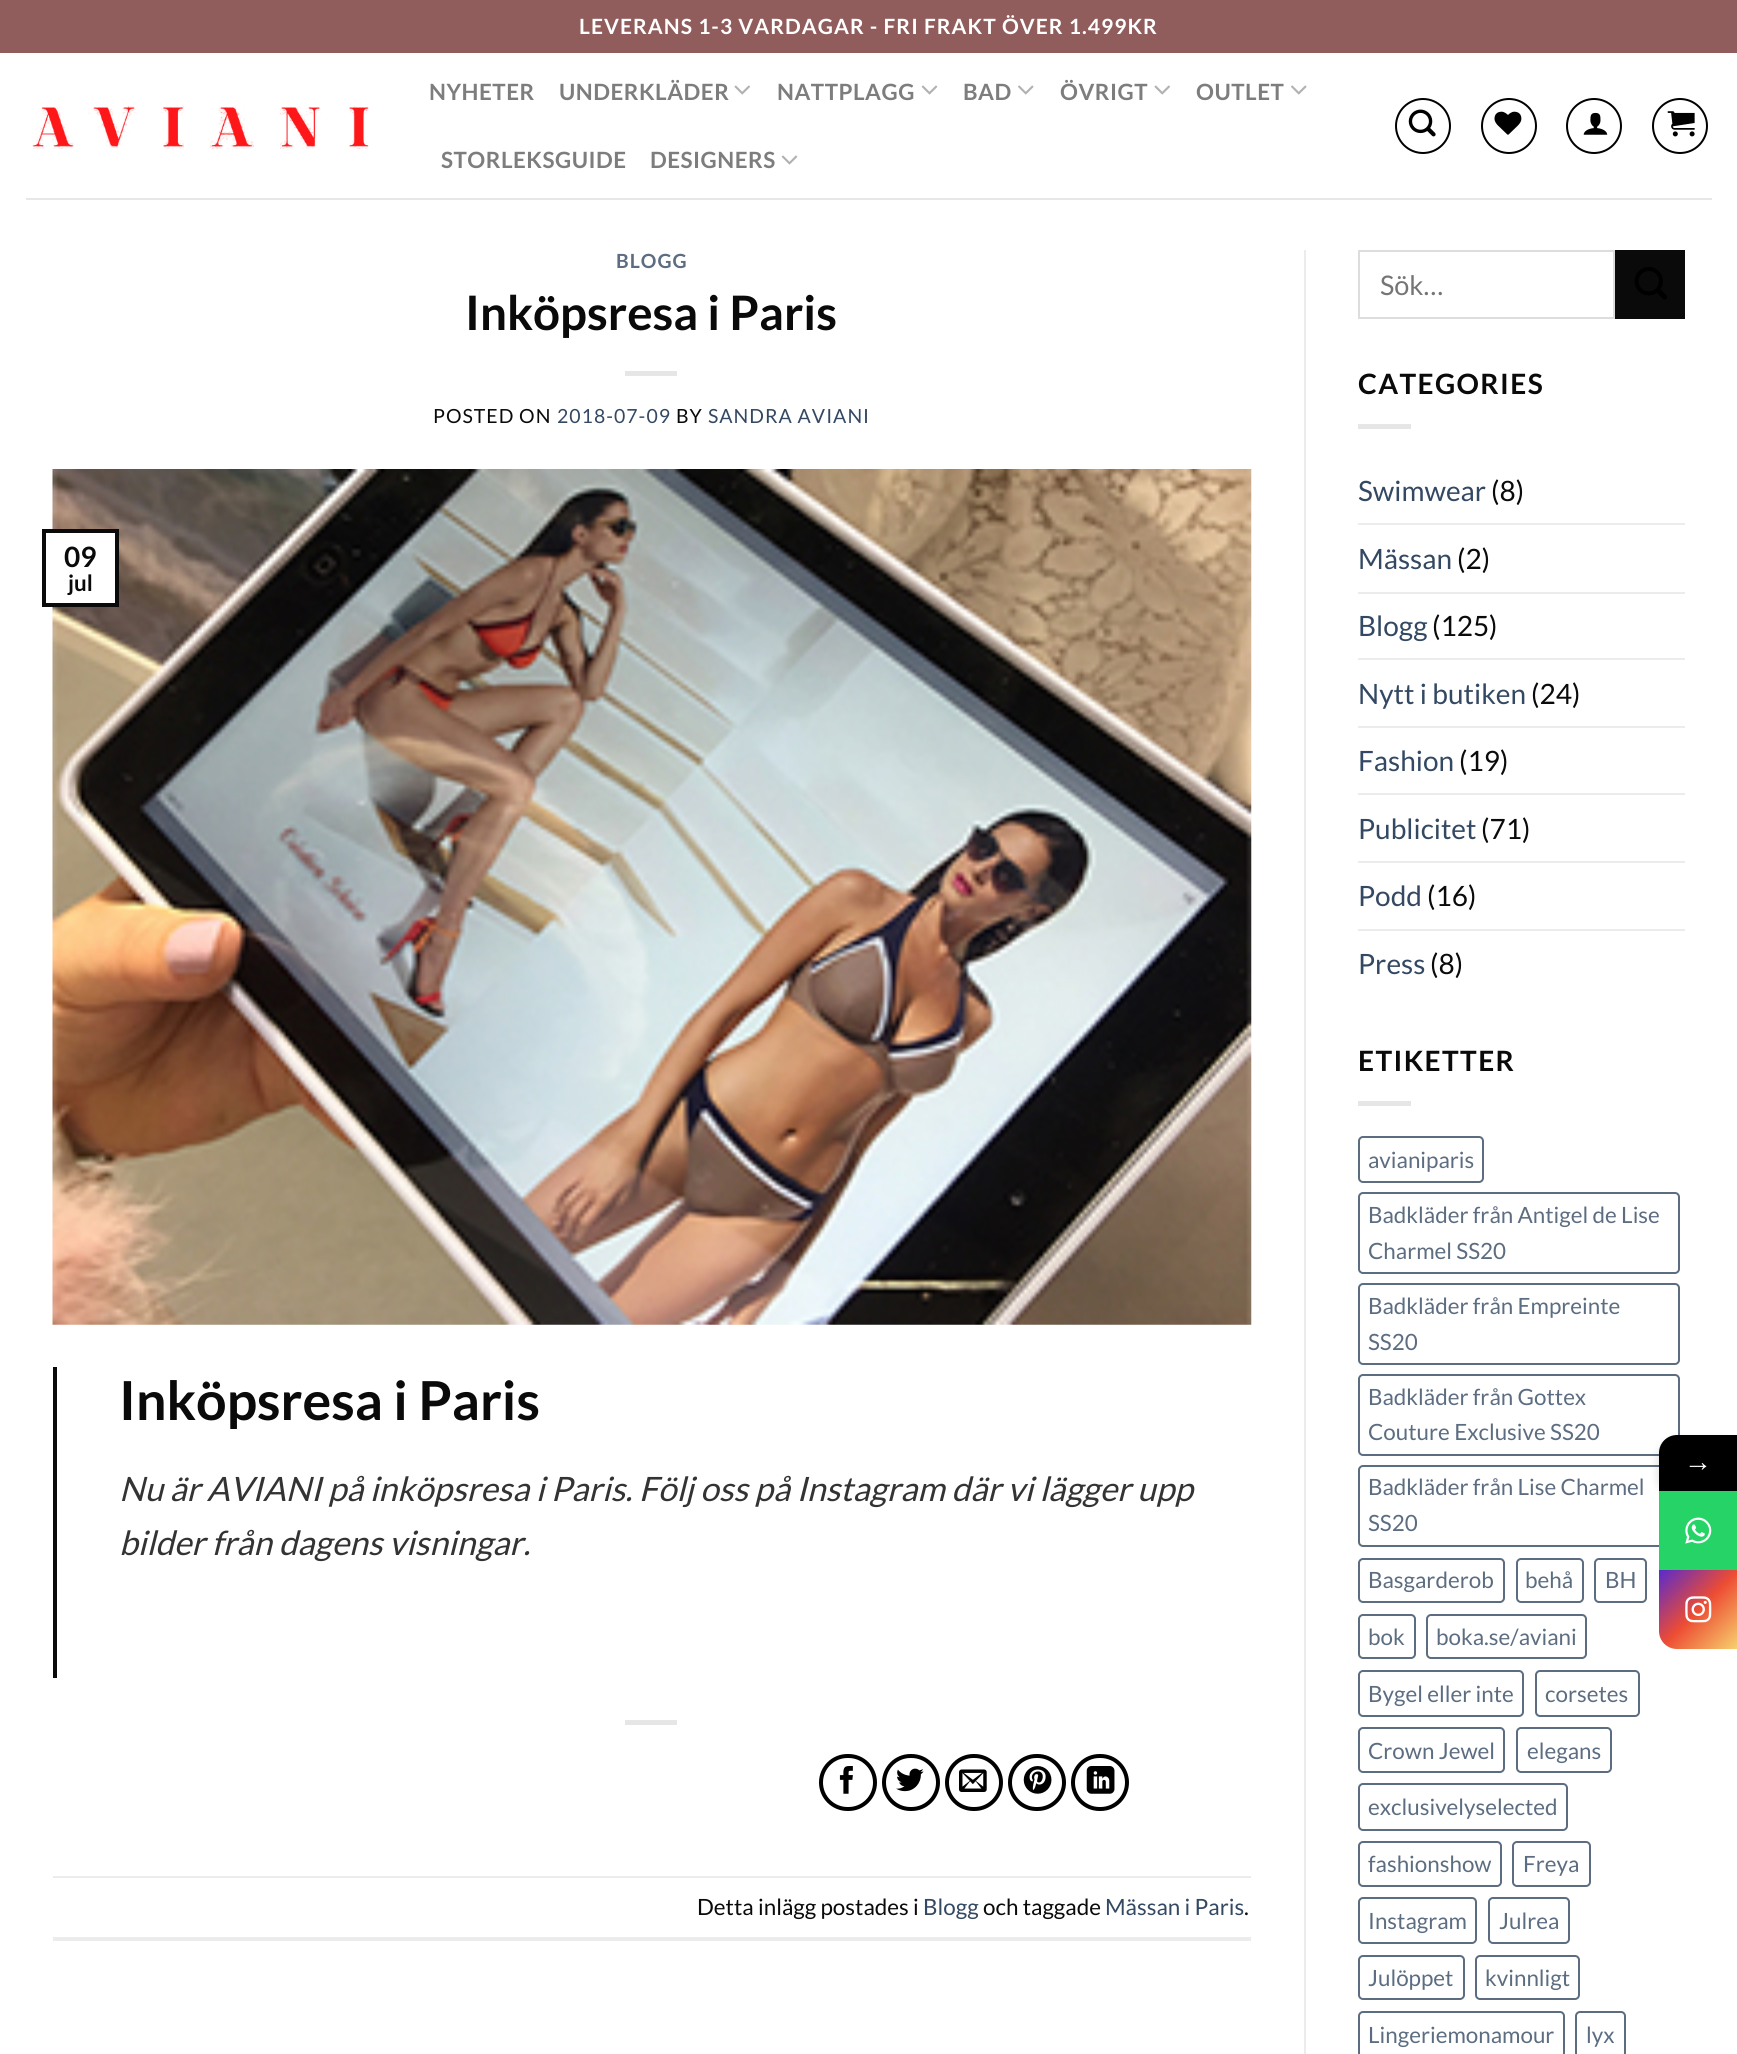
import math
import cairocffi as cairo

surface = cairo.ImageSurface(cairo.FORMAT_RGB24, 1737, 2054)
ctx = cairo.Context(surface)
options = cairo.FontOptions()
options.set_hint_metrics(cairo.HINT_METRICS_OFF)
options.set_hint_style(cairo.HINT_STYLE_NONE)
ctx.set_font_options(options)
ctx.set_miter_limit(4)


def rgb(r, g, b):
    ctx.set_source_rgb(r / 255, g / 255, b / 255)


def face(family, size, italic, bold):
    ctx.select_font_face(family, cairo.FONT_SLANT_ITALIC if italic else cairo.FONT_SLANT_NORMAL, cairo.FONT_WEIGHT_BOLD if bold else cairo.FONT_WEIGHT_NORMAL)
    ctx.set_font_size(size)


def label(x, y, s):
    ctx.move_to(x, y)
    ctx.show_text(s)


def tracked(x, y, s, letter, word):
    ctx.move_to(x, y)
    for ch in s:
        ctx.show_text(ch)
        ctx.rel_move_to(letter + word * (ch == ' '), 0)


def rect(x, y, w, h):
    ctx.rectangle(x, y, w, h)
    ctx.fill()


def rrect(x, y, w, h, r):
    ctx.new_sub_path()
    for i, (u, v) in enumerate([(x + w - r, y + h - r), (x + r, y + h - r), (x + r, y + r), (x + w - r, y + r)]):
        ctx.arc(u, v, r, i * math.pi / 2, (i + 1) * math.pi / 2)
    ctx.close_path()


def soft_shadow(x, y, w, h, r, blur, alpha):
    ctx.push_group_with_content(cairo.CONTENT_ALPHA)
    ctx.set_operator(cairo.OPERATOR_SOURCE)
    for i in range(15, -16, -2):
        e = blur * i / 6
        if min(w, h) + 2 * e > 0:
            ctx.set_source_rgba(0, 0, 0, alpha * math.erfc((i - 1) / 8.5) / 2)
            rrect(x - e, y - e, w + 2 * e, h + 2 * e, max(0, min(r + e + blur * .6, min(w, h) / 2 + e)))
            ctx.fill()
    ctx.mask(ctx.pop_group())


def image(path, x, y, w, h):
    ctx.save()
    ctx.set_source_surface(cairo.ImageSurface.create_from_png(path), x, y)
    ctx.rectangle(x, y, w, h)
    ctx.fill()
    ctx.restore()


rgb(255, 255, 255)
ctx.paint()
rgb(144, 93, 92)
rect(0, 0, 1737, 53)
face('Lato', 21, 0, 1)
rgb(255, 255, 255)
tracked(579, 34, 'LEVERANS 1-3 VARDAGAR - FRI FRAKT ÖVER 1.499KR', 1.05, 0)
image('image0.png', 32, 106, 337, 43)
face('Lato', 22.4, 0, 1)
rgb(125, 125, 125)
tracked(429, 100, 'NYHETER', 0.5, 0)
tracked(559, 100, 'UNDERKLÄDER', 0.5, 0)
image('image1.png', 734, 85, 16, 10)
tracked(777, 100, 'NATTPLAGG', 0.5, 0)
image('image2.png', 921, 85, 17, 10)
tracked(963, 100, 'BAD', 0.5, 0)
image('image3.png', 1018, 85, 16, 10)
tracked(1060, 100, 'ÖVRIGT', 0.5, 0)
image('image1.png', 1154, 85, 16, 10)
tracked(1196, 100, 'OUTLET', 0.5, 0)
image('image3.png', 1291, 85, 16, 10)
tracked(441, 168, 'STORLEKSGUIDE', 0.5, 0)
tracked(650, 168, 'DESIGNERS', 0.5, 0)
image('image2.png', 781, 155, 17, 10)
ctx.arc(1423, 126, 27, 0, 2 * math.pi)
rgb(0, 0, 0)
ctx.stroke()
image('image4.png', 1408, 109, 28, 28)
ctx.arc(1509, 126, 27, 0, 2 * math.pi)
ctx.stroke()
image('image5.png', 1494, 111, 28, 24)
ctx.arc(1594, 126, 27, 0, 2 * math.pi)
ctx.stroke()
image('image6.png', 1583, 112, 25, 23)
ctx.arc(1680, 126, 27, 0, 2 * math.pi)
ctx.stroke()
image('image7.png', 1667, 111, 28, 26)
rgb(231, 231, 231)
rect(26, 198, 1686, 2)
face('Lato', 19.5, 0, 1)
rgb(92, 109, 129)
tracked(616, 268, 'BLOGG', 1, 0)
face('Lato', 47.5, 0, 1)
rgb(10, 10, 10)
label(465, 330, 'Inköpsresa i Paris')
rgb(230, 230, 230)
rect(625, 371, 52, 5)
face('Lato', 19.5, 0, 0)
rgb(10, 10, 10)
tracked(433, 423, 'POSTED ON', 1, 0)
rgb(51, 72, 98)
tracked(557, 423, '2018-07-09', 1, 0)
rgb(10, 10, 10)
tracked(676, 423, 'BY', 1, 0)
rgb(51, 72, 98)
tracked(708, 423, 'SANDRA AVIANI', 1, 0)
image('image8.png', 52, 469, 1200, 856)
rgb(255, 255, 255)
rect(52, 533, 63, 70)
ctx.rectangle(44, 531, 73, 74)
rgb(10, 10, 10)
ctx.set_line_width(4)
ctx.stroke()
face('Lato', 28, 0, 1)
label(64, 567, '09')
face('Lato', 22.4, 0, 1)
label(68, 591, 'jul')
rect(53, 1367, 4, 311)
face('Lato', 53.75, 0, 1)
label(119, 1420, 'Inköpsresa i Paris')
face('Lato', 33.6, 1, 0)
rgb(51, 51, 51)
label(119, 1501, 'Nu är AVIANI på inköpsresa i Paris. Följ oss på Instagram där vi lägger upp')
label(119, 1555, 'bilder från dagens visningar.')
rgb(230, 230, 230)
rect(625, 1720, 52, 5)
rrect(821, 1756, 54, 53, 26.5)
rgb(0, 0, 0)
ctx.stroke()
image('image9.png', 839, 1766, 14, 28)
rrect(884, 1756, 54, 53, 26.5)
ctx.stroke()
image('image10.png', 896, 1768, 28, 24)
rrect(947, 1756, 54, 53, 26.5)
ctx.stroke()
image('image11.png', 959, 1769, 28, 23)
rrect(1010, 1756, 54, 53, 26.5)
ctx.stroke()
image('image12.png', 1023, 1766, 29, 28)
rrect(1073, 1756, 54, 53, 26.5)
ctx.stroke()
image('image13.png', 1086, 1766, 29, 28)
rgb(236, 236, 236)
rect(53, 1876, 1198, 2)
rect(53, 1937, 1198, 4)
face('Lato', 22.4, 0, 0)
rgb(10, 10, 10)
label(697, 1915, 'Detta inlägg postades i')
rgb(51, 72, 98)
label(923, 1915, 'Blogg')
rgb(10, 10, 10)
label(983, 1915, 'och taggade')
rgb(51, 72, 98)
label(1105, 1915, 'Mässan i Paris')
rgb(10, 10, 10)
label(1244, 1915, '.')
rgb(236, 236, 236)
rect(1304, 250, 2, 1804)
ctx.rectangle(1359, 251, 255, 67)
rgb(221, 221, 221)
ctx.set_line_width(2)
ctx.stroke()
face('Lato', 27, 0, 0)
rgb(117, 117, 117)
label(1380, 295, 'Sök…')
rgb(10, 10, 10)
rect(1615, 250, 70, 69)
image('image14.png', 1634, 267, 33, 33)
face('Lato', 28, 0, 1)
tracked(1358, 394, 'CATEGORIES', 1.4, 0)
rgb(230, 230, 230)
rect(1358, 424, 53, 5)
face('Lato', 28, 0, 0)
rgb(51, 72, 98)
label(1358, 501, 'Swimwear')
rgb(10, 10, 10)
label(1491, 501, '(8)')
rgb(236, 236, 236)
rect(1358, 523, 327, 2)
rgb(51, 72, 98)
label(1358, 569, 'Mässan')
rgb(10, 10, 10)
label(1457, 569, '(2)')
rgb(236, 236, 236)
rect(1358, 592, 327, 2)
rgb(51, 72, 98)
label(1358, 636, 'Blogg')
rgb(10, 10, 10)
label(1432, 636, '(125)')
rgb(236, 236, 236)
rect(1358, 658, 327, 2)
rgb(51, 72, 98)
label(1358, 704, 'Nytt i butiken')
rgb(10, 10, 10)
label(1531, 704, '(24)')
rgb(236, 236, 236)
rect(1358, 726, 327, 2)
rgb(51, 72, 98)
label(1358, 771, 'Fashion')
rgb(10, 10, 10)
label(1459, 771, '(19)')
rgb(236, 236, 236)
rect(1358, 793, 327, 2)
rgb(51, 72, 98)
label(1358, 839, 'Publicitet')
rgb(10, 10, 10)
label(1481, 839, '(71)')
rgb(236, 236, 236)
rect(1358, 861, 327, 2)
rgb(51, 72, 98)
label(1358, 906, 'Podd')
rgb(10, 10, 10)
label(1427, 906, '(16)')
rgb(236, 236, 236)
rect(1358, 929, 327, 2)
rgb(51, 72, 98)
label(1358, 974, 'Press')
rgb(10, 10, 10)
label(1430, 974, '(8)')
face('Lato', 28, 0, 1)
tracked(1358, 1071, 'ETIKETTER', 1.4, 0)
rgb(230, 230, 230)
rect(1358, 1101, 53, 5)
rrect(1359, 1137, 124, 45, 4)
rgb(92, 109, 129)
ctx.stroke()
face('Lato', 22.4, 0, 0)
label(1368, 1168, 'avianiparis')
rrect(1359, 1193, 320, 80, 4)
ctx.stroke()
label(1368, 1223, 'Badkläder från Antigel de Lise')
label(1368, 1259, 'Charmel SS20')
rrect(1359, 1284, 320, 80, 4)
ctx.stroke()
label(1368, 1314, 'Badkläder från Empreinte')
label(1368, 1350, 'SS20')
rrect(1359, 1375, 320, 80, 4)
ctx.stroke()
label(1368, 1405, 'Badkläder från Gottex')
label(1368, 1440, 'Couture Exclusive SS20')
rrect(1359, 1466, 320, 80, 4)
ctx.stroke()
label(1368, 1495, 'Badkläder från Lise Charmel')
label(1368, 1531, 'SS20')
rrect(1359, 1559, 145, 43, 4)
ctx.stroke()
label(1368, 1588, 'Basgarderob')
rrect(1517, 1559, 66, 43, 4)
ctx.stroke()
label(1525, 1588, 'behå')
rrect(1595, 1559, 51, 43, 4)
ctx.stroke()
label(1605, 1588, 'BH')
rrect(1359, 1615, 56, 43, 4)
ctx.stroke()
label(1368, 1645, 'bok')
rrect(1427, 1615, 159, 43, 4)
ctx.stroke()
label(1436, 1645, 'boka.se/aviani')
rrect(1359, 1671, 164, 45, 4)
ctx.stroke()
label(1368, 1702, 'Bygel eller inte')
rrect(1536, 1671, 103, 45, 4)
ctx.stroke()
label(1545, 1702, 'corsetes')
rrect(1359, 1728, 145, 44, 4)
ctx.stroke()
label(1368, 1759, 'Crown Jewel')
rrect(1517, 1728, 94, 44, 4)
ctx.stroke()
label(1527, 1759, 'elegans')
rrect(1359, 1784, 208, 46, 4)
ctx.stroke()
label(1368, 1815, 'exclusivelyselected')
rrect(1359, 1842, 142, 44, 4)
ctx.stroke()
label(1368, 1872, 'fashionshow')
rrect(1513, 1842, 77, 44, 4)
ctx.stroke()
label(1523, 1872, 'Freya')
rrect(1359, 1898, 117, 45, 4)
ctx.stroke()
label(1368, 1929, 'Instagram')
rrect(1489, 1898, 80, 45, 4)
ctx.stroke()
label(1499, 1929, 'Julrea')
rrect(1359, 1956, 105, 43, 4)
ctx.stroke()
label(1368, 1986, 'Julöppet')
rrect(1476, 1956, 103, 43, 4)
ctx.stroke()
label(1485, 1986, 'kvinnligt')
rrect(1359, 2012, 205, 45, 4)
ctx.stroke()
label(1368, 2043, 'Lingeriemonamour')
rrect(1576, 2012, 49, 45, 4)
ctx.stroke()
label(1586, 2043, 'lyx')
rgb(0, 0, 0)
soft_shadow(1659, 1440, 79, 56, 18, 5, 0.16)
rgb(0, 0, 0)
ctx.new_path()
ctx.move_to(1677, 1435)
ctx.line_to(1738, 1435)
ctx.line_to(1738, 1491)
ctx.line_to(1659, 1491)
ctx.line_to(1659, 1453)
ctx.curve_to(1659, 1443, 1667, 1435, 1677, 1435)
ctx.close_path()
ctx.fill()
face('Liberation Serif', 28, 0, 0)
rgb(255, 255, 255)
label(1684, 1471, '→')
rgb(38, 211, 103)
rect(1659, 1491, 78, 79)
image('image15.png', 1685, 1517, 27, 27)
gradient = cairo.LinearGradient(1659, 1570, 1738, 1649)
gradient.add_color_stop_rgba(0, 0.345, 0.169, 0.804, 1)
gradient.add_color_stop_rgba(0.5, 0.929, 0.298, 0.2, 1)
gradient.add_color_stop_rgba(1, 0.969, 0.827, 0.435, 1)
ctx.set_source(gradient)
ctx.new_path()
ctx.move_to(1659, 1570)
ctx.line_to(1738, 1570)
ctx.line_to(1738, 1649)
ctx.line_to(1677, 1649)
ctx.curve_to(1667, 1649, 1659, 1641, 1659, 1631)
ctx.close_path()
ctx.fill()
image('image16.png', 1685, 1596, 27, 27)
surface.write_to_png('render.png')
